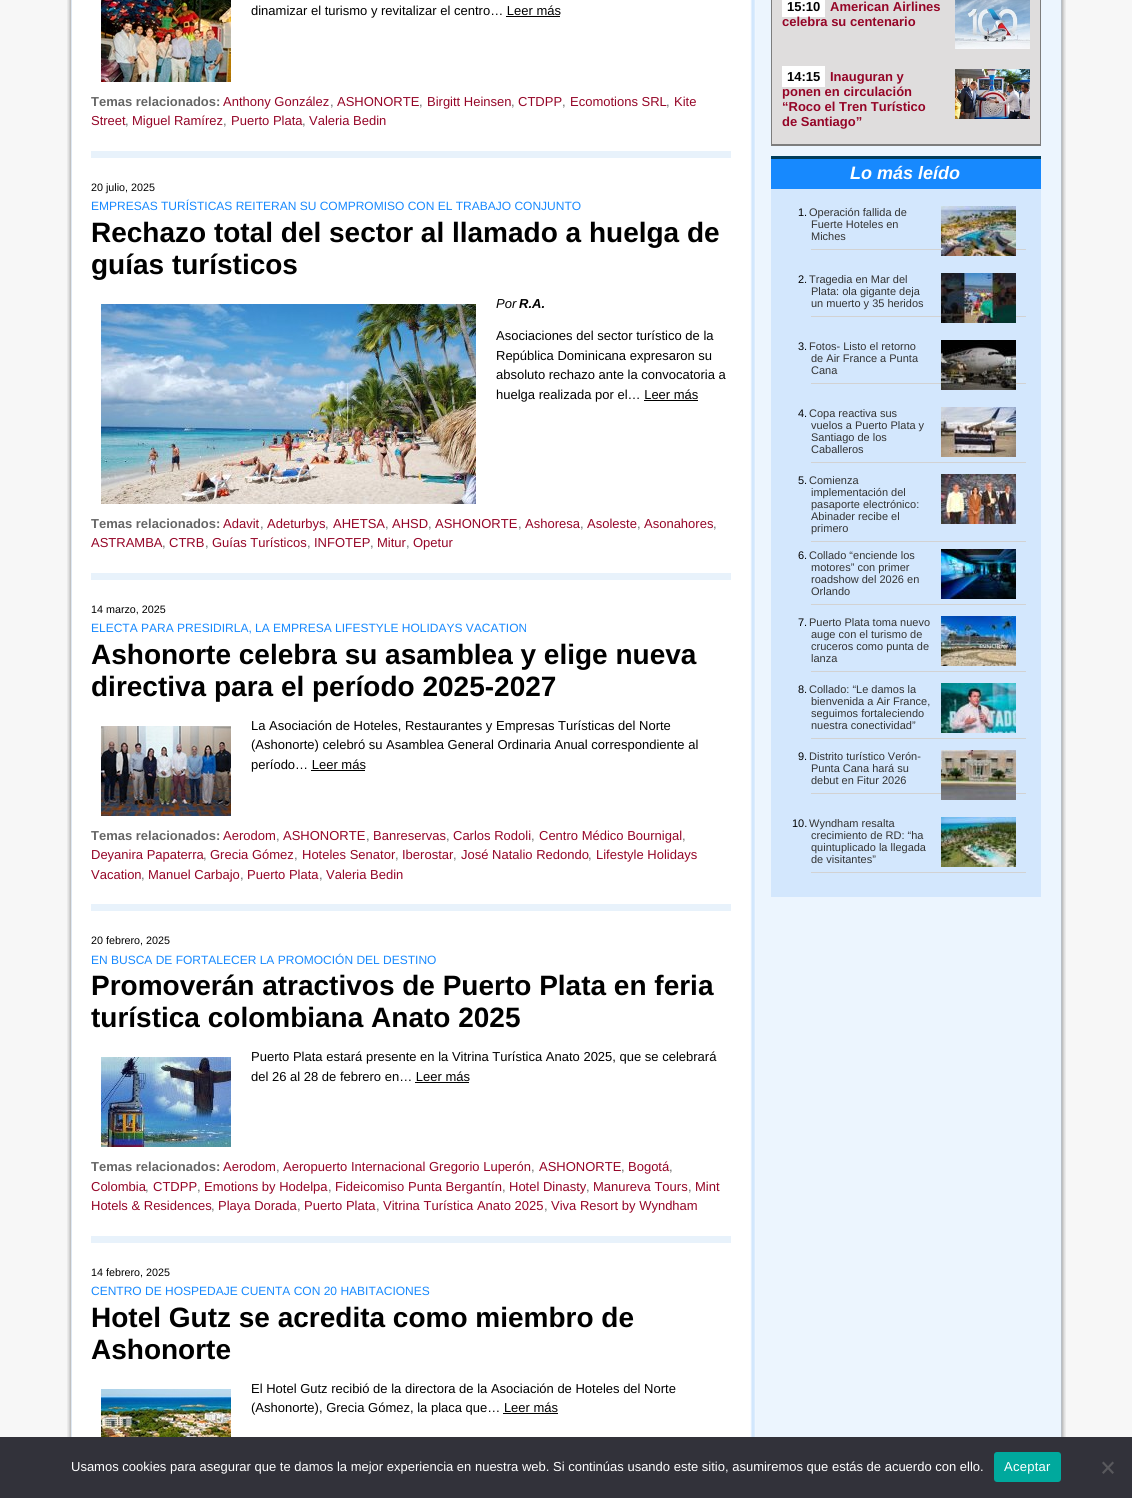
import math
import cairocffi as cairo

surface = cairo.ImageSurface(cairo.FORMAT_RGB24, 1132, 1498)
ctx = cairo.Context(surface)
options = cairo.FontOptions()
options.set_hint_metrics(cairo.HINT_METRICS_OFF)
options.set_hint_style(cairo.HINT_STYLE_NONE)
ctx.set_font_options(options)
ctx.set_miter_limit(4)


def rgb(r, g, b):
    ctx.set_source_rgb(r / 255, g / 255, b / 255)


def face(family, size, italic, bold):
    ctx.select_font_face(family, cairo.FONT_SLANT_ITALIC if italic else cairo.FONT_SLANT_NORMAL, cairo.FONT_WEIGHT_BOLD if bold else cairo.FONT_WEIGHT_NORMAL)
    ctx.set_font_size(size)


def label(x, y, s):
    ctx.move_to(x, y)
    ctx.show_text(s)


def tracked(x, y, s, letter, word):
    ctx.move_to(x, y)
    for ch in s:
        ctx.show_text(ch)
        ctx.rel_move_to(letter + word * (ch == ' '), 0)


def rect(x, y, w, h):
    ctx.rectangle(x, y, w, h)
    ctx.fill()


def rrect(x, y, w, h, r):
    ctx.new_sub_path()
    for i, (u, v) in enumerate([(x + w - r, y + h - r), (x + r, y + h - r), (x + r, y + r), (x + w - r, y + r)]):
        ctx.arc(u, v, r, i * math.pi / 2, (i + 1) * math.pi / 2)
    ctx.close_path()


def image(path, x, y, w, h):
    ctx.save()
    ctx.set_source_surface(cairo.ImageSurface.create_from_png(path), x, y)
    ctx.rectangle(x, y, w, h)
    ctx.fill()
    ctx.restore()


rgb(247, 247, 247)
ctx.paint()
image('image0.png', 67, 0, 999, 1437)
image('image1.png', 101, 0, 130, 82)
face('Liberation Sans', 13, 0, 0)
rgb(0, 0, 0)
label(251, 15, 'dinamizar el turismo y revitalizar el centro… Leer más')
rect(506, 16, 54, 1)
face('Liberation Sans', 13, 0, 1)
rgb(102, 102, 102)
label(91, 106, 'Temas relacionados:')
face('Liberation Sans', 13, 0, 0)
rgb(149, 5, 39)
label(223, 106, 'Anthony González')
rgb(102, 102, 102)
label(330, 106, ',')
rgb(149, 5, 39)
label(337, 106, 'ASHONORTE')
rgb(102, 102, 102)
label(419, 106, ',')
rgb(149, 5, 39)
label(427, 106, 'Birgitt Heinsen')
rgb(102, 102, 102)
label(511, 106, ',')
rgb(149, 5, 39)
label(518, 106, 'CTDPP')
rgb(102, 102, 102)
label(562, 106, ',')
rgb(149, 5, 39)
label(570, 106, 'Ecomotions SRL')
rgb(102, 102, 102)
label(666, 106, ',')
rgb(149, 5, 39)
label(674, 106, 'Kite')
label(91, 125, 'Street')
rgb(102, 102, 102)
label(125, 125, ',')
rgb(149, 5, 39)
label(132, 125, 'Miguel Ramírez')
rgb(102, 102, 102)
label(223, 125, ',')
rgb(149, 5, 39)
label(231, 125, 'Puerto Plata')
rgb(102, 102, 102)
label(302, 125, ',')
rgb(149, 5, 39)
label(309, 125, 'Valeria Bedin')
rgb(232, 242, 251)
rect(91, 151, 640, 7)
face('Liberation Sans', 10.75, 0, 0)
rgb(0, 0, 0)
label(91, 191, '20 julio, 2025')
face('Liberation Sans', 12, 0, 0)
rgb(23, 137, 254)
label(91, 210, 'EMPRESAS TURÍSTICAS REITERAN SU COMPROMISO CON EL TRABAJO CONJUNTO')
face('Liberation Sans', 28, 0, 1)
rgb(0, 0, 0)
label(91, 242, 'Rechazo total del sector al llamado a huelga de')
label(91, 274, 'guías turísticos')
image('image2.png', 101, 304, 375, 200)
face('Liberation Sans', 13, 1, 0)
label(496, 308, 'Por')
face('Liberation Sans', 13, 1, 1)
label(519, 308, 'R.A.')
face('Liberation Sans', 13, 0, 0)
label(496, 340, 'Asociaciones del sector turístico de la')
label(496, 360, 'República Dominicana expresaron su')
label(496, 379, 'absoluto rechazo ante la convocatoria a')
label(496, 399, 'huelga realizada por el… Leer más')
rect(644, 400, 54, 1)
face('Liberation Sans', 13, 0, 1)
rgb(102, 102, 102)
label(91, 528, 'Temas relacionados:')
face('Liberation Sans', 13, 0, 0)
rgb(149, 5, 39)
label(223, 528, 'Adavit')
rgb(102, 102, 102)
label(260, 528, ',')
rgb(149, 5, 39)
label(267, 528, 'Adeturbys')
rgb(102, 102, 102)
label(325, 528, ',')
rgb(149, 5, 39)
label(333, 528, 'AHETSA')
rgb(102, 102, 102)
label(385, 528, ',')
rgb(149, 5, 39)
label(392, 528, 'AHSD')
rgb(102, 102, 102)
label(428, 528, ',')
rgb(149, 5, 39)
label(435, 528, 'ASHONORTE')
rgb(102, 102, 102)
label(518, 528, ',')
rgb(149, 5, 39)
label(525, 528, 'Ashoresa')
rgb(102, 102, 102)
label(580, 528, ',')
rgb(149, 5, 39)
label(587, 528, 'Asoleste')
rgb(102, 102, 102)
label(637, 528, ',')
rgb(149, 5, 39)
label(644, 528, 'Asonahores')
rgb(102, 102, 102)
label(713, 528, ',')
rgb(149, 5, 39)
label(91, 547, 'ASTRAMBA')
rgb(102, 102, 102)
label(162, 547, ',')
rgb(149, 5, 39)
label(169, 547, 'CTRB')
rgb(102, 102, 102)
label(205, 547, ',')
rgb(149, 5, 39)
label(212, 547, 'Guías Turísticos')
rgb(102, 102, 102)
label(307, 547, ',')
rgb(149, 5, 39)
label(314, 547, 'INFOTEP')
rgb(102, 102, 102)
label(370, 547, ',')
rgb(149, 5, 39)
label(377, 547, 'Mitur')
rgb(102, 102, 102)
label(406, 547, ',')
rgb(149, 5, 39)
label(413, 547, 'Opetur')
rgb(232, 242, 251)
rect(91, 573, 640, 7)
face('Liberation Sans', 10.75, 0, 0)
rgb(0, 0, 0)
label(91, 613, '14 marzo, 2025')
face('Liberation Sans', 12, 0, 0)
rgb(23, 137, 254)
label(91, 632, 'ELECTA PARA PRESIDIRLA, LA EMPRESA LIFESTYLE HOLIDAYS VACATION')
face('Liberation Sans', 28, 0, 1)
rgb(0, 0, 0)
label(91, 664, 'Ashonorte celebra su asamblea y elige nueva')
label(91, 696, 'directiva para el período 2025-2027')
image('image3.png', 101, 726, 130, 90)
face('Liberation Sans', 13, 0, 0)
label(251, 730, 'La Asociación de Hoteles, Restaurantes y Empresas Turísticas del Norte')
label(251, 749, '(Ashonorte) celebró su Asamblea General Ordinaria Anual correspondiente al')
label(251, 769, 'período… Leer más')
rect(311, 770, 54, 1)
face('Liberation Sans', 13, 0, 1)
rgb(102, 102, 102)
label(91, 840, 'Temas relacionados:')
face('Liberation Sans', 13, 0, 0)
rgb(149, 5, 39)
label(223, 840, 'Aerodom')
rgb(102, 102, 102)
label(276, 840, ',')
rgb(149, 5, 39)
label(283, 840, 'ASHONORTE')
rgb(102, 102, 102)
label(366, 840, ',')
rgb(149, 5, 39)
label(373, 840, 'Banreservas')
rgb(102, 102, 102)
label(446, 840, ',')
rgb(149, 5, 39)
label(453, 840, 'Carlos Rodoli')
rgb(102, 102, 102)
label(531, 840, ',')
rgb(149, 5, 39)
label(539, 840, 'Centro Médico Bournigal')
rgb(102, 102, 102)
label(682, 840, ',')
rgb(149, 5, 39)
label(91, 859, 'Deyanira Papaterra')
rgb(102, 102, 102)
label(203, 859, ',')
rgb(149, 5, 39)
label(210, 859, 'Grecia Gómez')
rgb(102, 102, 102)
label(294, 859, ',')
rgb(149, 5, 39)
label(302, 859, 'Hoteles Senator')
rgb(102, 102, 102)
label(395, 859, ',')
rgb(149, 5, 39)
label(402, 859, 'Iberostar')
rgb(102, 102, 102)
label(453, 859, ',')
rgb(149, 5, 39)
label(461, 859, 'José Natalio Redondo')
rgb(102, 102, 102)
label(588, 859, ',')
rgb(149, 5, 39)
label(596, 859, 'Lifestyle Holidays')
label(91, 879, 'Vacation')
rgb(102, 102, 102)
label(141, 879, ',')
rgb(149, 5, 39)
label(148, 879, 'Manuel Carbajo')
rgb(102, 102, 102)
label(240, 879, ',')
rgb(149, 5, 39)
label(247, 879, 'Puerto Plata')
rgb(102, 102, 102)
label(319, 879, ',')
rgb(149, 5, 39)
label(326, 879, 'Valeria Bedin')
rgb(232, 242, 251)
rect(91, 904, 640, 7)
face('Liberation Sans', 10.75, 0, 0)
rgb(0, 0, 0)
label(91, 944, '20 febrero, 2025')
face('Liberation Sans', 12, 0, 0)
rgb(23, 137, 254)
label(91, 964, 'EN BUSCA DE FORTALECER LA PROMOCIÓN DEL DESTINO')
face('Liberation Sans', 28, 0, 1)
rgb(0, 0, 0)
label(91, 995, 'Promoverán atractivos de Puerto Plata en feria')
label(91, 1027, 'turística colombiana Anato 2025')
image('image4.png', 101, 1057, 130, 90)
face('Liberation Sans', 13, 0, 0)
label(251, 1061, 'Puerto Plata estará presente en la Vitrina Turística Anato 2025, que se celebrará')
label(251, 1081, 'del 26 al 28 de febrero en… Leer más')
rect(415, 1082, 54, 1)
face('Liberation Sans', 13, 0, 1)
rgb(102, 102, 102)
label(91, 1171, 'Temas relacionados:')
face('Liberation Sans', 13, 0, 0)
rgb(149, 5, 39)
label(223, 1171, 'Aerodom')
rgb(102, 102, 102)
label(276, 1171, ',')
rgb(149, 5, 39)
label(283, 1171, 'Aeropuerto Internacional Gregorio Luperón')
rgb(102, 102, 102)
label(531, 1171, ',')
rgb(149, 5, 39)
label(539, 1171, 'ASHONORTE')
rgb(102, 102, 102)
label(621, 1171, ',')
rgb(149, 5, 39)
label(628, 1171, 'Bogotá')
rgb(102, 102, 102)
label(669, 1171, ',')
rgb(149, 5, 39)
label(91, 1191, 'Colombia')
rgb(102, 102, 102)
label(145, 1191, ',')
rgb(149, 5, 39)
label(153, 1191, 'CTDPP')
rgb(102, 102, 102)
label(197, 1191, ',')
rgb(149, 5, 39)
label(204, 1191, 'Emotions by Hodelpa')
rgb(102, 102, 102)
label(328, 1191, ',')
rgb(149, 5, 39)
label(335, 1191, 'Fideicomiso Punta Bergantín')
rgb(102, 102, 102)
label(502, 1191, ',')
rgb(149, 5, 39)
label(509, 1191, 'Hotel Dinasty')
rgb(102, 102, 102)
label(586, 1191, ',')
rgb(149, 5, 39)
label(593, 1191, 'Manureva Tours')
rgb(102, 102, 102)
label(688, 1191, ',')
rgb(149, 5, 39)
label(695, 1191, 'Mint')
label(91, 1210, 'Hotels & Residences')
rgb(102, 102, 102)
label(211, 1210, ',')
rgb(149, 5, 39)
label(218, 1210, 'Playa Dorada')
rgb(102, 102, 102)
label(297, 1210, ',')
rgb(149, 5, 39)
label(304, 1210, 'Puerto Plata')
rgb(102, 102, 102)
label(376, 1210, ',')
rgb(149, 5, 39)
label(383, 1210, 'Vitrina Turística Anato 2025')
rgb(102, 102, 102)
label(544, 1210, ',')
rgb(149, 5, 39)
label(551, 1210, 'Viva Resort by Wyndham')
rgb(232, 242, 251)
rect(91, 1236, 640, 7)
face('Liberation Sans', 10.75, 0, 0)
rgb(0, 0, 0)
label(91, 1276, '14 febrero, 2025')
face('Liberation Sans', 12, 0, 0)
rgb(23, 137, 254)
label(91, 1295, 'CENTRO DE HOSPEDAJE CUENTA CON 20 HABITACIONES')
face('Liberation Sans', 28, 0, 1)
rgb(0, 0, 0)
label(91, 1327, 'Hotel Gutz se acredita como miembro de')
label(91, 1359, 'Ashonorte')
image('image5.png', 101, 1389, 130, 48)
face('Liberation Sans', 13, 0, 0)
label(251, 1393, 'El Hotel Gutz recibió de la directora de la Asociación de Hoteles del Norte')
label(251, 1412, '(Ashonorte), Grecia Gómez, la placa que… Leer más')
rect(503, 1413, 55, 1)
rgb(125, 125, 125)
rect(1040, 0, 1, 146)
rect(771, 144, 270, 2)
rect(771, 0, 1, 146)
rgb(223, 221, 221)
rect(772, 0, 268, 144)
rgb(255, 255, 255)
rect(782, 0, 43, 17)
face('Liberation Sans', 13, 0, 1)
rgb(0, 0, 0)
label(787, 11, '15:10')
rgb(149, 5, 39)
label(830, 11, 'American Airlines')
label(782, 26, 'celebra su centenario')
image('image6.png', 955, 0, 75, 49)
rgb(255, 255, 255)
rect(782, 66, 43, 21)
rgb(0, 0, 0)
label(787, 81, '14:15')
rgb(149, 5, 39)
label(830, 81, 'Inauguran y')
label(782, 96, 'ponen en circulación')
label(782, 111, '“Roco el Tren Turístico')
label(782, 126, 'de Santiago”')
image('image7.png', 955, 69, 75, 50)
rgb(23, 137, 254)
rect(771, 159, 270, 30)
rgb(0, 61, 91)
rect(771, 156, 270, 3)
face('Liberation Sans', 18, 1, 1)
rgb(255, 255, 255)
label(850, 179, 'Lo más leído')
rgb(211, 231, 253)
rect(771, 189, 270, 708)
rgb(210, 210, 210)
rect(811, 249, 215, 1)
face('Liberation Sans', 11, 0, 0)
rgb(0, 0, 0)
label(798, 216, '1.')
rgb(51, 51, 51)
label(809, 216, 'Operación fallida de')
image('image8.png', 941, 206, 75, 50)
label(811, 228, 'Fuerte Hoteles en')
label(811, 240, 'Miches')
rgb(210, 210, 210)
rect(811, 316, 215, 1)
rgb(0, 0, 0)
label(798, 283, '2.')
rgb(51, 51, 51)
label(809, 283, 'Tragedia en Mar del')
image('image9.png', 941, 273, 75, 50)
label(811, 295, 'Plata: ola gigante deja')
label(811, 307, 'un muerto y 35 heridos')
rgb(210, 210, 210)
rect(811, 383, 215, 1)
rgb(0, 0, 0)
label(798, 350, '3.')
rgb(51, 51, 51)
label(809, 350, 'Fotos- Listo el retorno')
image('image10.png', 941, 340, 75, 50)
label(811, 362, 'de Air France a Punta')
label(811, 374, 'Cana')
rgb(210, 210, 210)
rect(811, 462, 215, 1)
rgb(0, 0, 0)
label(798, 417, '4.')
rgb(51, 51, 51)
label(809, 417, 'Copa reactiva sus')
image('image11.png', 941, 407, 75, 50)
label(811, 429, 'vuelos a Puerto Plata y')
label(811, 441, 'Santiago de los')
label(811, 453, 'Caballeros')
rgb(210, 210, 210)
rect(811, 541, 215, 1)
rgb(0, 0, 0)
label(798, 484, '5.')
rgb(51, 51, 51)
label(809, 484, 'Comienza')
image('image12.png', 941, 474, 75, 50)
label(811, 496, 'implementación del')
label(811, 508, 'pasaporte electrónico:')
label(811, 520, 'Abinader recibe el')
label(811, 532, 'primero')
rgb(210, 210, 210)
rect(811, 604, 215, 1)
rgb(0, 0, 0)
label(798, 559, '6.')
rgb(51, 51, 51)
label(809, 559, 'Collado “enciende los')
image('image13.png', 941, 549, 75, 50)
label(811, 571, 'motores” con primer')
label(811, 583, 'roadshow del 2026 en')
label(811, 595, 'Orlando')
rgb(210, 210, 210)
rect(811, 671, 215, 1)
rgb(0, 0, 0)
label(798, 626, '7.')
rgb(51, 51, 51)
label(809, 626, 'Puerto Plata toma nuevo')
image('image14.png', 941, 616, 75, 50)
label(811, 638, 'auge con el turismo de')
label(811, 650, 'cruceros como punta de')
label(811, 662, 'lanza')
rgb(210, 210, 210)
rect(811, 738, 215, 1)
rgb(0, 0, 0)
label(798, 693, '8.')
rgb(51, 51, 51)
label(809, 693, 'Collado: “Le damos la')
image('image15.png', 941, 683, 75, 50)
label(811, 705, 'bienvenida a Air France,')
label(811, 717, 'seguimos fortaleciendo')
label(811, 729, 'nuestra conectividad”')
rgb(210, 210, 210)
rect(811, 793, 215, 1)
rgb(0, 0, 0)
label(798, 760, '9.')
rgb(51, 51, 51)
label(809, 760, 'Distrito turístico Verón-')
image('image16.png', 941, 750, 75, 50)
label(811, 772, 'Punta Cana hará su')
label(811, 784, 'debut en Fitur 2026')
rgb(210, 210, 210)
rect(811, 872, 215, 1)
rgb(0, 0, 0)
label(792, 827, '10.')
rgb(51, 51, 51)
label(809, 827, 'Wyndham resalta')
image('image17.png', 941, 817, 75, 50)
label(811, 839, 'crecimiento de RD: “ha')
label(811, 851, 'quintuplicado la llegada')
label(811, 863, 'de visitantes”')
rgb(50, 50, 58)
rect(0, 1437, 1132, 61)
face('Liberation Sans', 13, 0, 0)
rgb(255, 255, 255)
label(71, 1471, 'Usamos cookies para asegurar que te damos la mejor experiencia en nuestra web. Si continúas usando este sitio, asumiremos que estás de acuerdo con ello.')
rgb(0, 169, 157)
rrect(994, 1452, 67, 30, 3)
ctx.fill()
rgb(255, 255, 255)
tracked(1004, 1471, 'Aceptar', 0.25, 0)
rgb(89, 89, 93)
ctx.new_path()
ctx.move_to(1112.5, 1461.5)
ctx.line_to(1114, 1463)
ctx.line_to(1103.5, 1474)
ctx.line_to(1102, 1472.5)
ctx.close_path()
ctx.fill()
ctx.new_path()
ctx.move_to(1102, 1463)
ctx.line_to(1103.5, 1461.5)
ctx.line_to(1114, 1472.5)
ctx.line_to(1112.5, 1474)
ctx.close_path()
ctx.fill()
surface.write_to_png('render.png')
